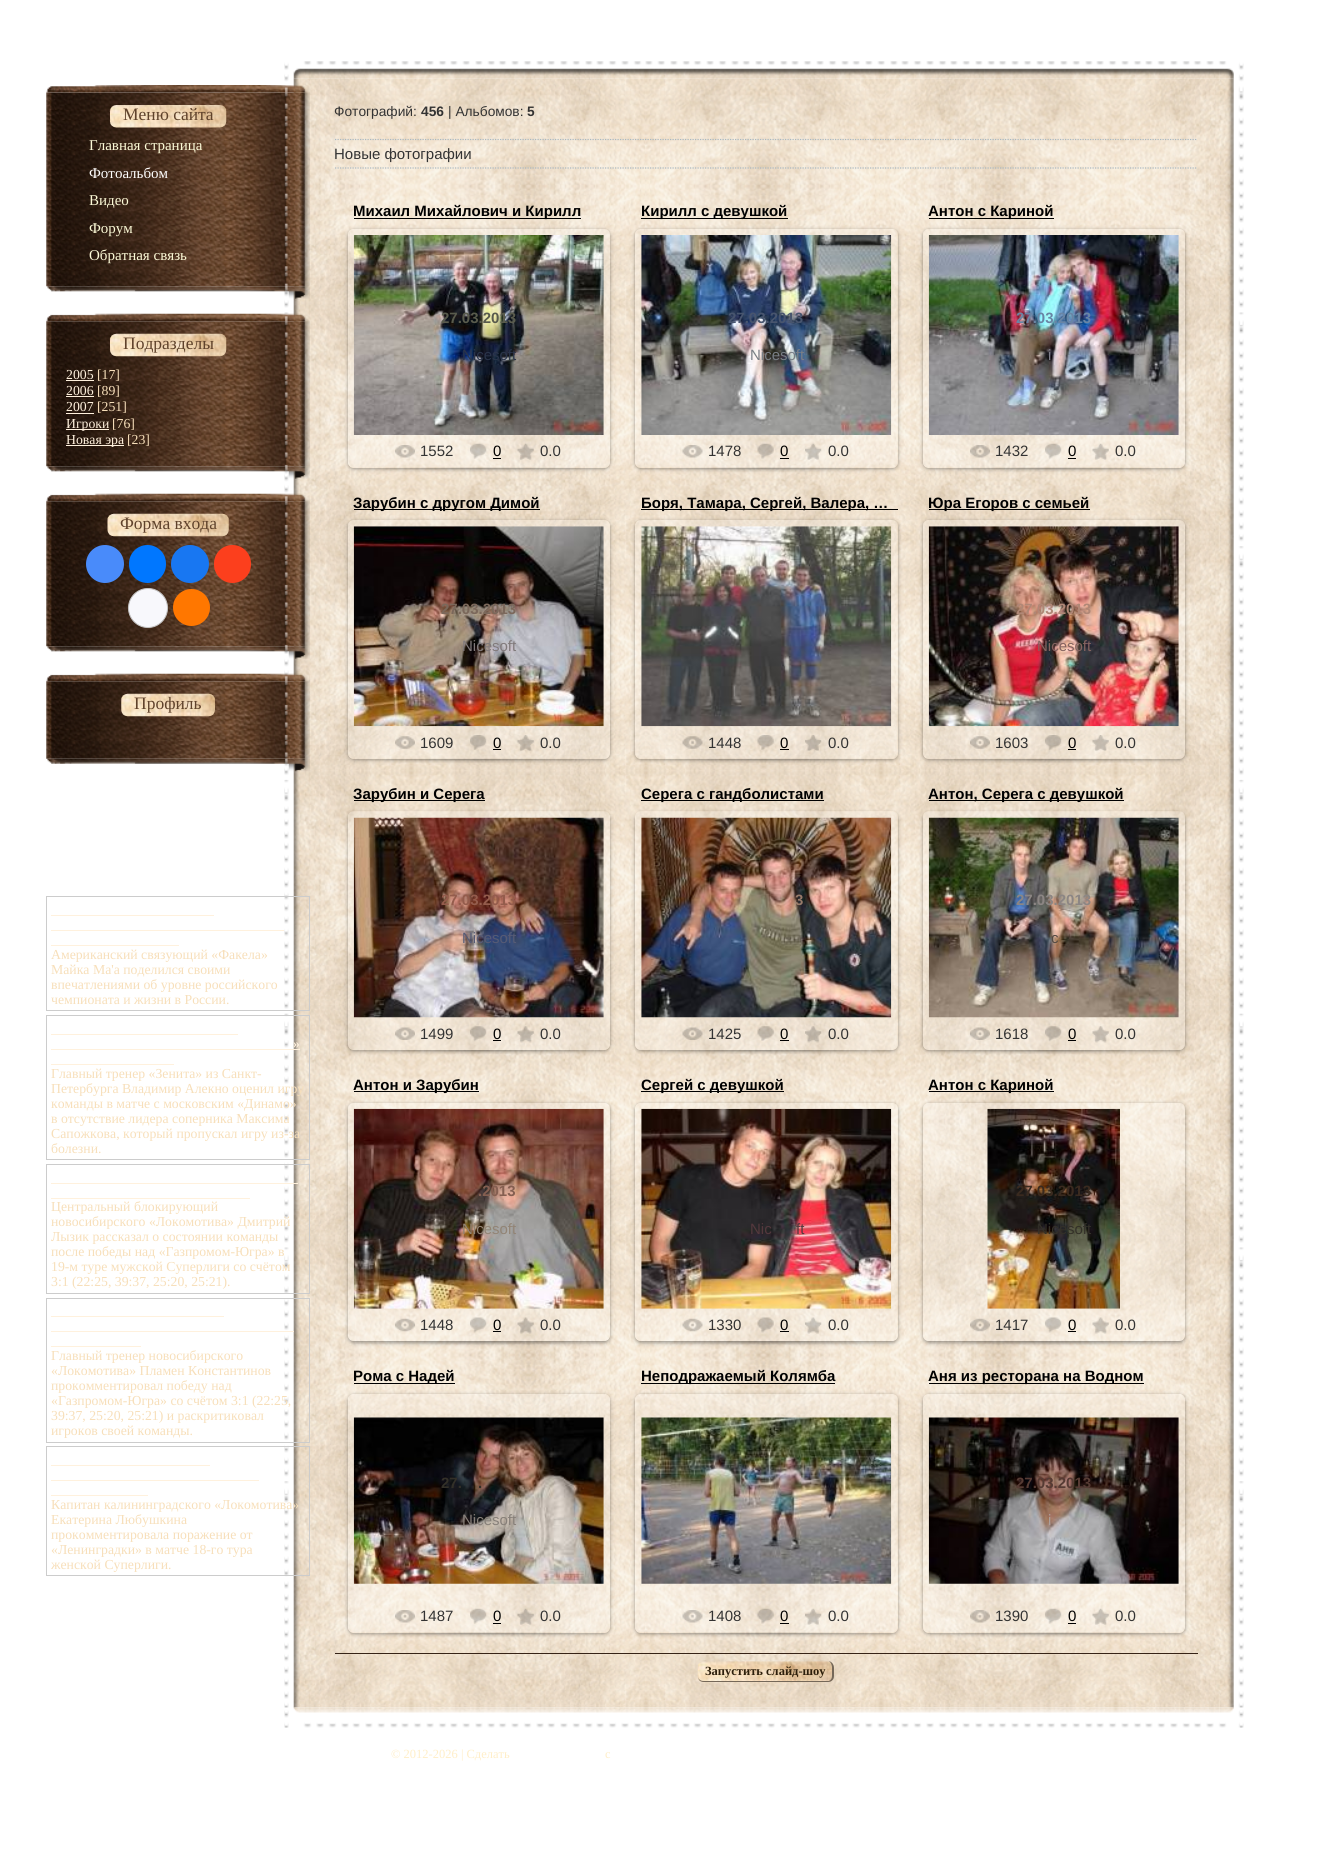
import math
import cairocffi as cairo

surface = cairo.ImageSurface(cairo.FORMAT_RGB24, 1344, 1854)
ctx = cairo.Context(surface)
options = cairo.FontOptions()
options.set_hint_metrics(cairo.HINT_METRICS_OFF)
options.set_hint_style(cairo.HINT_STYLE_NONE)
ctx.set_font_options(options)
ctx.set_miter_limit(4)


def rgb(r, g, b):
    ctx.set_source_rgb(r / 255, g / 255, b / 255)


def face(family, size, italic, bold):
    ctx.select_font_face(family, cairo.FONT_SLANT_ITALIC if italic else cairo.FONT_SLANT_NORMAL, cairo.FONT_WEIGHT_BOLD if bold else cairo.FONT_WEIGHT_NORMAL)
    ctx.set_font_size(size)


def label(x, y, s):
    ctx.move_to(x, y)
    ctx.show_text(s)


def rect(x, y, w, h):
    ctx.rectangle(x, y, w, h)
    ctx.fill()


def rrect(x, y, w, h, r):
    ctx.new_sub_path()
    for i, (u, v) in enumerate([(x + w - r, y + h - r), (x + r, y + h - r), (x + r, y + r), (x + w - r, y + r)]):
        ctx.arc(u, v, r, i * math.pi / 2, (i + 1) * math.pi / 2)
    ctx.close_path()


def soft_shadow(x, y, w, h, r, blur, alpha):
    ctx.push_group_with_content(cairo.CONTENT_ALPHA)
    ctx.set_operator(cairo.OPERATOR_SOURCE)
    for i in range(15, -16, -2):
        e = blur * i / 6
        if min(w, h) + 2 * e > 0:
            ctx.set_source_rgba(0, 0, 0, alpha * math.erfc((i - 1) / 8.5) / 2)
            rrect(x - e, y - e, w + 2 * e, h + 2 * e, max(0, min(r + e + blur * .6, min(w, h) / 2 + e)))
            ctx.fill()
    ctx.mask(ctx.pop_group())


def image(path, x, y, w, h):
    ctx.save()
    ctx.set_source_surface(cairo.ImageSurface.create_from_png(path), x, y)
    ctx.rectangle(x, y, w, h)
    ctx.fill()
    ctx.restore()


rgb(255, 255, 255)
ctx.paint()
image('image1.png', 284, 78, 960, 1630)
image('image0.png', 284, 61, 960, 18)
image('image3.png', 46, 92, 264, 195)
image('image2.png', 46, 85, 264, 8)
image('image4.png', 109, 105, 118, 23)
face('Liberation Serif', 17.5, 0, 0)
rgb(95, 66, 43)
label(123, 120, 'Меню сайта')
face('Liberation Serif', 15, 0, 0)
rgb(252, 250, 215)
label(89, 150, 'Главная страница')
rgb(255, 255, 255)
label(89, 178, 'Фотоальбом')
rgb(252, 250, 215)
label(89, 205, 'Видео')
label(89, 233, 'Форум')
label(89, 260, 'Обратная связь')
image('image5.png', 47, 286, 263, 13)
image('image7.png', 46, 321, 264, 146)
image('image6.png', 46, 313, 264, 9)
image('image8.png', 110, 333, 117, 24)
face('Liberation Serif', 17.5, 0, 0)
rgb(95, 66, 43)
label(123, 349, 'Подразделы')
face('Liberation Serif', 13.75, 0, 0)
rgb(255, 241, 221)
label(66, 379, '2005')
rect(66, 380, 28, 1)
rgb(247, 223, 186)
label(97, 379, '[17]')
rgb(255, 241, 221)
label(66, 395, '2006')
rect(66, 396, 28, 1)
rgb(247, 223, 186)
label(97, 395, '[89]')
rgb(255, 241, 221)
label(66, 411, '2007')
rect(66, 413, 28, 1)
rgb(247, 223, 186)
label(97, 411, '[251]')
rgb(255, 241, 221)
rect(66, 429, 43, 1)
label(66, 428, 'Игроки')
rgb(247, 223, 186)
label(112, 428, '[76]')
rgb(255, 241, 221)
rect(66, 445, 58, 1)
label(66, 444, 'Новая эра')
rgb(247, 223, 186)
label(127, 444, '[23]')
image('image9.png', 47, 466, 263, 13)
image('image11.png', 46, 501, 264, 146)
image('image10.png', 46, 493, 264, 9)
image('image12.png', 107, 513, 122, 24)
face('Liberation Serif', 17.5, 0, 0)
rgb(95, 66, 43)
label(120, 529, 'Форма входа')
rgb(73, 139, 250)
ctx.new_path()
ctx.arc(105, 564, 19, 0, 2 * math.pi)
ctx.fill()
rgb(0, 119, 255)
rrect(129, 545, 37, 38, 18.5)
ctx.fill()
rgb(24, 119, 242)
ctx.arc(190, 564, 19, 0, 2 * math.pi)
ctx.fill()
rgb(252, 63, 29)
rrect(214, 545, 37, 38, 18.5)
ctx.fill()
rgb(248, 248, 252)
ctx.arc(148, 608, 19.5, 0, 2 * math.pi)
ctx.fill_preserve()
rgb(196, 196, 196)
ctx.set_line_width(1)
ctx.stroke()
rgb(255, 119, 0)
ctx.arc(191.5, 607.5, 18.5, 0, 2 * math.pi)
ctx.fill()
image('image13.png', 47, 646, 263, 13)
image('image15.png', 46, 681, 264, 78)
image('image14.png', 46, 673, 264, 9)
image('image16.png', 121, 693, 94, 24)
rgb(95, 66, 43)
label(134, 709, 'Профиль')
image('image17.png', 47, 758, 263, 14)
ctx.rectangle(46.5, 896.5, 263, 114)
rgb(204, 204, 204)
ctx.stroke()
rgb(255, 241, 221)
rect(51, 915, 163, 1)
rect(51, 930, 233, 1)
rect(51, 945, 128, 1)
face('Liberation Serif', 13.75, 0, 0)
rgb(247, 223, 186)
label(51, 959, 'Американский связующий «Факела»')
label(51, 974, 'Майка Ма\'а поделился своими')
label(51, 989, 'впечатлениями об уровне российского')
label(51, 1004, 'чемпионата и жизни в России.')
ctx.rectangle(46.5, 1015.5, 263, 144)
rgb(204, 204, 204)
ctx.stroke()
face('Liberation Serif', 13.75, 0, 1)
rgb(255, 241, 221)
label(293, 1048, '»')
rect(51, 1034, 187, 1)
rect(51, 1049, 249, 1)
rect(51, 1064, 123, 1)
face('Liberation Serif', 13.75, 0, 0)
rgb(247, 223, 186)
label(51, 1078, 'Главный тренер «Зенита» из Санкт-')
label(51, 1093, 'Петербурга Владимир Алекно оценил игру')
label(51, 1108, 'команды в матче с московским «Динамо»')
label(51, 1123, 'в отсутствие лидера соперника Максима')
label(51, 1138, 'Сапожкова, который пропускал игру из-за')
label(51, 1153, 'болезни.')
ctx.rectangle(46.5, 1164.5, 263, 129)
rgb(204, 204, 204)
ctx.stroke()
rgb(255, 241, 221)
rect(51, 1183, 247, 1)
rect(51, 1198, 199, 1)
rgb(247, 223, 186)
label(51, 1211, 'Центральный блокирующий')
label(51, 1226, 'новосибирского «Локомотива» Дмитрий')
label(51, 1241, 'Лызик рассказал о состоянии команды')
label(51, 1256, 'после победы над «Газпромом-Югра» в')
label(51, 1271, '19-м туре мужской Суперлиги со счётом')
label(51, 1286, '3:1 (22:25, 39:37, 25:20, 25:21).')
ctx.rectangle(46.5, 1298.5, 263, 144)
rgb(204, 204, 204)
ctx.stroke()
rgb(255, 241, 221)
rect(51, 1316, 173, 1)
rect(51, 1331, 243, 1)
rect(51, 1346, 90, 1)
rgb(247, 223, 186)
label(51, 1360, 'Главный тренер новосибирского')
label(51, 1375, '«Локомотива» Пламен Константинов')
label(51, 1390, 'прокомментировал победу над')
label(51, 1405, '«Газпромом-Югра» со счётом 3:1 (22:25,')
label(51, 1420, '39:37, 25:20, 25:21) и раскритиковал')
label(51, 1435, 'игроков своей команды.')
ctx.rectangle(46.5, 1446.5, 263, 129)
rgb(204, 204, 204)
ctx.stroke()
rgb(255, 241, 221)
rect(51, 1465, 159, 1)
rect(51, 1480, 208, 1)
rect(51, 1495, 97, 1)
rgb(247, 223, 186)
label(51, 1509, 'Капитан калининградского «Локомотива»')
label(51, 1524, 'Екатерина Любушкина')
label(51, 1539, 'прокомментировала поражение от')
label(51, 1554, '«Ленинградки» в матче 18-го тура')
label(51, 1569, 'женской Суперлиги.')
face('Liberation Sans', 13.75, 0, 0)
rgb(51, 51, 51)
label(334, 116, 'Фотографий:')
face('Liberation Sans', 13.75, 0, 1)
label(421, 116, '456')
face('Liberation Sans', 13.75, 0, 0)
label(448, 116, '| Альбомов:')
face('Liberation Sans', 13.75, 0, 1)
label(527, 116, '5')
ctx.new_path()
ctx.move_to(335, 139.5)
ctx.line_to(1197.5, 139.5)
rgb(169, 184, 194)
ctx.set_line_width(1.2)
ctx.set_dash([1.25, 1.25])
ctx.stroke()
ctx.new_path()
ctx.move_to(335, 168)
ctx.line_to(1197.5, 168)
ctx.stroke()
face('Liberation Sans', 15, 0, 0)
rgb(51, 51, 51)
label(334, 159, 'Новые фотографии')
rgb(0, 0, 0)
rect(354, 218, 227, 1)
face('Liberation Sans', 15, 0, 1)
label(353, 216, 'Михаил Михайлович и Кирилл')
ctx.save()
ctx.set_fill_rule(cairo.FILL_RULE_EVEN_ODD)
ctx.new_path()
ctx.move_to(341, 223)
ctx.line_to(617, 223)
ctx.line_to(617, 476)
ctx.line_to(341, 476)
ctx.close_path()
ctx.move_to(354, 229)
ctx.line_to(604, 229)
ctx.curve_to(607.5, 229, 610, 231.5, 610, 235)
ctx.line_to(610, 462)
ctx.curve_to(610, 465.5, 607.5, 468, 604, 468)
ctx.line_to(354, 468)
ctx.curve_to(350.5, 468, 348, 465.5, 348, 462)
ctx.line_to(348, 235)
ctx.curve_to(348, 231.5, 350.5, 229, 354, 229)
ctx.close_path()
ctx.clip()
rgb(0, 0, 0)
soft_shadow(348, 230, 262, 239, 6, 2, 0.37)
ctx.restore()
image('image18.png', 347, 229, 263, 239)
image('image19.png', 353, 235, 251, 200)
rgb(89, 91, 77)
label(441, 323, '27.03.2013')
face('Liberation Sans', 15, 0, 0)
rgb(42, 52, 74)
label(462, 360, 'Nicesoft')
image('image20.png', 395, 445, 20, 13)
rgb(51, 51, 51)
label(420, 456, '1552')
image('image21.png', 470, 443, 17, 16)
rgb(0, 0, 0)
label(493, 456, '0')
rect(493, 458, 8, 1)
image('image22.png', 517, 443, 17, 17)
rgb(51, 51, 51)
label(540, 456, '0.0')
image('image23.png', 383, 467, 193, 5)
rgb(0, 0, 0)
rect(641, 218, 147, 1)
face('Liberation Sans', 15, 0, 1)
label(641, 216, 'Кирилл с девушкой')
ctx.save()
ctx.set_fill_rule(cairo.FILL_RULE_EVEN_ODD)
ctx.new_path()
ctx.move_to(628, 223)
ctx.line_to(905, 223)
ctx.line_to(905, 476)
ctx.line_to(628, 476)
ctx.close_path()
ctx.move_to(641, 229)
ctx.line_to(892, 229)
ctx.curve_to(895.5, 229, 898, 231.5, 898, 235)
ctx.line_to(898, 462)
ctx.curve_to(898, 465.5, 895.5, 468, 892, 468)
ctx.line_to(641, 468)
ctx.curve_to(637.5, 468, 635, 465.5, 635, 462)
ctx.line_to(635, 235)
ctx.curve_to(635, 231.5, 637.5, 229, 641, 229)
ctx.close_path()
ctx.clip()
rgb(0, 0, 0)
soft_shadow(635, 230, 263, 239, 6, 2, 0.37)
ctx.restore()
image('image24.png', 635, 229, 262, 239)
image('image25.png', 641, 235, 251, 200)
rgb(72, 85, 110)
label(728, 323, '27.03.2013')
face('Liberation Sans', 15, 0, 0)
rgb(121, 126, 133)
label(750, 360, 'Nicesoft')
image('image26.png', 682, 445, 21, 13)
rgb(51, 51, 51)
label(708, 456, '1478')
image('image27.png', 757, 443, 17, 16)
rgb(0, 0, 0)
label(780, 456, '0')
rect(780, 458, 9, 1)
image('image28.png', 805, 443, 17, 17)
rgb(51, 51, 51)
label(828, 456, '0.0')
image('image29.png', 670, 467, 194, 5)
rgb(0, 0, 0)
rect(929, 218, 125, 1)
face('Liberation Sans', 15, 0, 1)
label(928, 216, 'Антон с Кариной')
ctx.save()
ctx.set_fill_rule(cairo.FILL_RULE_EVEN_ODD)
ctx.new_path()
ctx.move_to(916, 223)
ctx.line_to(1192, 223)
ctx.line_to(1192, 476)
ctx.line_to(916, 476)
ctx.close_path()
ctx.move_to(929, 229)
ctx.line_to(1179, 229)
ctx.curve_to(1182.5, 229, 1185, 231.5, 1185, 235)
ctx.line_to(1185, 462)
ctx.curve_to(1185, 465.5, 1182.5, 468, 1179, 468)
ctx.line_to(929, 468)
ctx.curve_to(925.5, 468, 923, 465.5, 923, 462)
ctx.line_to(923, 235)
ctx.curve_to(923, 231.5, 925.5, 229, 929, 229)
ctx.close_path()
ctx.clip()
rgb(0, 0, 0)
soft_shadow(923, 230, 262, 239, 6, 2, 0.37)
ctx.restore()
image('image30.png', 923, 229, 262, 239)
image('image31.png', 928, 235, 251, 200)
rgb(105, 133, 165)
label(1016, 323, '27.03.2013')
face('Liberation Sans', 15, 0, 0)
rgb(126, 127, 139)
label(1048, 360, 'i')
image('image32.png', 970, 445, 20, 13)
rgb(51, 51, 51)
label(995, 456, '1432')
image('image33.png', 1045, 443, 17, 16)
rgb(0, 0, 0)
label(1068, 456, '0')
rect(1068, 458, 8, 1)
image('image34.png', 1092, 443, 17, 17)
rgb(51, 51, 51)
label(1115, 456, '0.0')
image('image35.png', 958, 467, 193, 5)
rgb(0, 0, 0)
rect(354, 509, 186, 1)
face('Liberation Sans', 15, 0, 1)
label(353, 508, 'Зарубин с другом Димой')
ctx.save()
ctx.set_fill_rule(cairo.FILL_RULE_EVEN_ODD)
ctx.new_path()
ctx.move_to(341, 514)
ctx.line_to(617, 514)
ctx.line_to(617, 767)
ctx.line_to(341, 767)
ctx.close_path()
ctx.move_to(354, 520)
ctx.line_to(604, 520)
ctx.curve_to(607.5, 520, 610, 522.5, 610, 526)
ctx.line_to(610, 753)
ctx.curve_to(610, 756.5, 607.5, 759, 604, 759)
ctx.line_to(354, 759)
ctx.curve_to(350.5, 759, 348, 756.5, 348, 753)
ctx.line_to(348, 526)
ctx.curve_to(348, 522.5, 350.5, 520, 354, 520)
ctx.close_path()
ctx.clip()
rgb(0, 0, 0)
soft_shadow(348, 521, 262, 239, 6, 2, 0.37)
ctx.restore()
image('image36.png', 347, 520, 263, 239)
image('image37.png', 353, 526, 251, 201)
rgb(123, 104, 91)
label(441, 614, '27.03.2013')
face('Liberation Sans', 15, 0, 0)
rgb(129, 122, 123)
label(462, 651, 'Nicesoft')
image('image38.png', 395, 736, 20, 13)
rgb(51, 51, 51)
label(420, 748, '1609')
image('image39.png', 470, 735, 17, 15)
rgb(0, 0, 0)
label(493, 748, '0')
rect(493, 749, 8, 1)
image('image40.png', 517, 735, 17, 16)
rgb(51, 51, 51)
label(540, 748, '0.0')
image('image41.png', 382, 758, 195, 5)
rgb(0, 0, 0)
rect(641, 509, 257, 1)
face('Liberation Sans', 15, 0, 1)
label(641, 508, 'Боря, Тамара, Сергей, Валера, …')
ctx.save()
ctx.set_fill_rule(cairo.FILL_RULE_EVEN_ODD)
ctx.new_path()
ctx.move_to(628, 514)
ctx.line_to(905, 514)
ctx.line_to(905, 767)
ctx.line_to(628, 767)
ctx.close_path()
ctx.move_to(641, 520)
ctx.line_to(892, 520)
ctx.curve_to(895.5, 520, 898, 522.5, 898, 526)
ctx.line_to(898, 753)
ctx.curve_to(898, 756.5, 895.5, 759, 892, 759)
ctx.line_to(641, 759)
ctx.curve_to(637.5, 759, 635, 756.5, 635, 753)
ctx.line_to(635, 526)
ctx.curve_to(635, 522.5, 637.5, 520, 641, 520)
ctx.close_path()
ctx.clip()
rgb(0, 0, 0)
soft_shadow(635, 521, 263, 239, 6, 2, 0.37)
ctx.restore()
image('image42.png', 635, 520, 262, 239)
image('image43.png', 641, 526, 251, 201)
image('image44.png', 682, 736, 21, 13)
face('Liberation Sans', 15, 0, 0)
rgb(51, 51, 51)
label(708, 748, '1448')
image('image45.png', 757, 735, 17, 15)
rgb(0, 0, 0)
label(780, 748, '0')
rect(780, 749, 9, 1)
image('image46.png', 805, 735, 17, 16)
rgb(51, 51, 51)
label(828, 748, '0.0')
image('image47.png', 670, 758, 194, 5)
rgb(0, 0, 0)
rect(929, 509, 161, 1)
face('Liberation Sans', 15, 0, 1)
label(928, 508, 'Юра Егоров с семьей')
ctx.save()
ctx.set_fill_rule(cairo.FILL_RULE_EVEN_ODD)
ctx.new_path()
ctx.move_to(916, 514)
ctx.line_to(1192, 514)
ctx.line_to(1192, 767)
ctx.line_to(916, 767)
ctx.close_path()
ctx.move_to(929, 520)
ctx.line_to(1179, 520)
ctx.curve_to(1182.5, 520, 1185, 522.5, 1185, 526)
ctx.line_to(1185, 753)
ctx.curve_to(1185, 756.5, 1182.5, 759, 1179, 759)
ctx.line_to(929, 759)
ctx.curve_to(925.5, 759, 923, 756.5, 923, 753)
ctx.line_to(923, 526)
ctx.curve_to(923, 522.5, 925.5, 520, 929, 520)
ctx.close_path()
ctx.clip()
rgb(0, 0, 0)
soft_shadow(923, 521, 262, 239, 6, 2, 0.37)
ctx.restore()
image('image48.png', 923, 520, 262, 239)
image('image49.png', 928, 526, 251, 201)
rgb(176, 135, 118)
label(1016, 614, '27.03.2013')
face('Liberation Sans', 15, 0, 0)
rgb(133, 99, 96)
label(1037, 651, 'Nicesoft')
image('image50.png', 970, 736, 20, 13)
rgb(51, 51, 51)
label(995, 748, '1603')
image('image51.png', 1045, 735, 17, 15)
rgb(0, 0, 0)
label(1068, 748, '0')
rect(1068, 749, 8, 1)
image('image52.png', 1092, 735, 17, 16)
rgb(51, 51, 51)
label(1115, 748, '0.0')
image('image53.png', 957, 758, 195, 5)
rgb(0, 0, 0)
rect(354, 800, 131, 1)
face('Liberation Sans', 15, 0, 1)
label(353, 799, 'Зарубин и Серега')
ctx.save()
ctx.set_fill_rule(cairo.FILL_RULE_EVEN_ODD)
ctx.new_path()
ctx.move_to(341, 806)
ctx.line_to(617, 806)
ctx.line_to(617, 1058)
ctx.line_to(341, 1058)
ctx.close_path()
ctx.move_to(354, 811)
ctx.line_to(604, 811)
ctx.curve_to(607.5, 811, 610, 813.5, 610, 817)
ctx.line_to(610, 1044)
ctx.curve_to(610, 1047.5, 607.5, 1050, 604, 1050)
ctx.line_to(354, 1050)
ctx.curve_to(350.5, 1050, 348, 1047.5, 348, 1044)
ctx.line_to(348, 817)
ctx.curve_to(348, 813.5, 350.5, 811, 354, 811)
ctx.close_path()
ctx.clip()
rgb(0, 0, 0)
soft_shadow(348, 813, 262, 238, 6, 2, 0.37)
ctx.restore()
image('image54.png', 347, 811, 263, 239)
image('image55.png', 353, 817, 251, 201)
rgb(148, 92, 76)
label(441, 905, '27.03.2013')
face('Liberation Sans', 15, 0, 0)
rgb(86, 91, 117)
label(462, 943, 'Nicesoft')
image('image56.png', 395, 1027, 20, 13)
rgb(51, 51, 51)
label(420, 1039, '1499')
image('image57.png', 470, 1026, 17, 16)
rgb(0, 0, 0)
label(493, 1039, '0')
rect(493, 1040, 8, 1)
image('image58.png', 517, 1026, 17, 17)
rgb(51, 51, 51)
label(540, 1039, '0.0')
image('image59.png', 379, 1050, 200, 4)
rgb(0, 0, 0)
rect(641, 800, 183, 1)
face('Liberation Sans', 15, 0, 1)
label(641, 799, 'Серега с гандболистами')
ctx.save()
ctx.set_fill_rule(cairo.FILL_RULE_EVEN_ODD)
ctx.new_path()
ctx.move_to(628, 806)
ctx.line_to(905, 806)
ctx.line_to(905, 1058)
ctx.line_to(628, 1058)
ctx.close_path()
ctx.move_to(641, 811)
ctx.line_to(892, 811)
ctx.curve_to(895.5, 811, 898, 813.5, 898, 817)
ctx.line_to(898, 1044)
ctx.curve_to(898, 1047.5, 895.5, 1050, 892, 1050)
ctx.line_to(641, 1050)
ctx.curve_to(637.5, 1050, 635, 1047.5, 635, 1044)
ctx.line_to(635, 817)
ctx.curve_to(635, 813.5, 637.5, 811, 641, 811)
ctx.close_path()
ctx.clip()
rgb(0, 0, 0)
soft_shadow(635, 813, 263, 238, 6, 2, 0.37)
ctx.restore()
image('image60.png', 635, 811, 262, 239)
image('image61.png', 641, 817, 251, 201)
rgb(151, 122, 105)
label(795, 905, '3')
image('image62.png', 682, 1027, 21, 13)
face('Liberation Sans', 15, 0, 0)
rgb(51, 51, 51)
label(708, 1039, '1425')
image('image63.png', 757, 1026, 17, 15)
rgb(0, 0, 0)
label(780, 1039, '0')
rect(780, 1040, 9, 1)
image('image64.png', 805, 1026, 17, 17)
rgb(51, 51, 51)
label(828, 1039, '0.0')
image('image65.png', 667, 1050, 200, 4)
rgb(0, 0, 0)
rect(929, 800, 195, 1)
face('Liberation Sans', 15, 0, 1)
label(928, 799, 'Антон, Серега с девушкой')
ctx.save()
ctx.set_fill_rule(cairo.FILL_RULE_EVEN_ODD)
ctx.new_path()
ctx.move_to(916, 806)
ctx.line_to(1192, 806)
ctx.line_to(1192, 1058)
ctx.line_to(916, 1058)
ctx.close_path()
ctx.move_to(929, 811)
ctx.line_to(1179, 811)
ctx.curve_to(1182.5, 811, 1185, 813.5, 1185, 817)
ctx.line_to(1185, 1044)
ctx.curve_to(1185, 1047.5, 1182.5, 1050, 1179, 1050)
ctx.line_to(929, 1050)
ctx.curve_to(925.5, 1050, 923, 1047.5, 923, 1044)
ctx.line_to(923, 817)
ctx.curve_to(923, 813.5, 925.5, 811, 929, 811)
ctx.close_path()
ctx.clip()
rgb(0, 0, 0)
soft_shadow(923, 813, 262, 238, 6, 2, 0.37)
ctx.restore()
image('image66.png', 923, 811, 262, 239)
image('image67.png', 928, 817, 251, 201)
rgb(140, 134, 132)
label(1016, 905, '27.03.2013')
face('Liberation Sans', 15, 0, 0)
rgb(85, 75, 67)
label(1051, 943, 'c')
image('image68.png', 970, 1027, 20, 13)
rgb(51, 51, 51)
label(995, 1039, '1618')
image('image69.png', 1045, 1026, 17, 16)
rgb(0, 0, 0)
label(1068, 1039, '0')
rect(1068, 1040, 8, 1)
image('image70.png', 1092, 1026, 17, 17)
rgb(51, 51, 51)
label(1115, 1039, '0.0')
image('image71.png', 954, 1050, 200, 4)
rgb(0, 0, 0)
rect(354, 1091, 125, 1)
face('Liberation Sans', 15, 0, 1)
label(353, 1090, 'Антон и Зарубин')
ctx.save()
ctx.set_fill_rule(cairo.FILL_RULE_EVEN_ODD)
ctx.new_path()
ctx.move_to(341, 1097)
ctx.line_to(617, 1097)
ctx.line_to(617, 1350)
ctx.line_to(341, 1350)
ctx.close_path()
ctx.move_to(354, 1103)
ctx.line_to(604, 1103)
ctx.curve_to(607.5, 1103, 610, 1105.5, 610, 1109)
ctx.line_to(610, 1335)
ctx.curve_to(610, 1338.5, 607.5, 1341, 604, 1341)
ctx.line_to(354, 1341)
ctx.curve_to(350.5, 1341, 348, 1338.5, 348, 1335)
ctx.line_to(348, 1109)
ctx.curve_to(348, 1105.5, 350.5, 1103, 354, 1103)
ctx.close_path()
ctx.clip()
rgb(0, 0, 0)
soft_shadow(348, 1104, 262, 239, 6, 2, 0.37)
ctx.restore()
image('image72.png', 347, 1103, 263, 238)
image('image73.png', 353, 1108, 251, 201)
rgb(133, 95, 81)
label(457, 1196, '.')
label(478, 1196, '.2013')
face('Liberation Sans', 15, 0, 0)
rgb(146, 132, 117)
label(462, 1234, 'Nicesoft')
image('image74.png', 395, 1318, 20, 14)
rgb(51, 51, 51)
label(420, 1330, '1448')
image('image75.png', 470, 1317, 17, 16)
rgb(0, 0, 0)
label(493, 1330, '0')
rect(493, 1331, 8, 1)
image('image76.png', 517, 1317, 17, 17)
rgb(51, 51, 51)
label(540, 1330, '0.0')
image('image77.png', 387, 1341, 184, 4)
rgb(0, 0, 0)
rect(641, 1091, 143, 1)
face('Liberation Sans', 15, 0, 1)
label(641, 1090, 'Сергей с девушкой')
ctx.save()
ctx.set_fill_rule(cairo.FILL_RULE_EVEN_ODD)
ctx.new_path()
ctx.move_to(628, 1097)
ctx.line_to(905, 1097)
ctx.line_to(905, 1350)
ctx.line_to(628, 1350)
ctx.close_path()
ctx.move_to(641, 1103)
ctx.line_to(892, 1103)
ctx.curve_to(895.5, 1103, 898, 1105.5, 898, 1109)
ctx.line_to(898, 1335)
ctx.curve_to(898, 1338.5, 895.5, 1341, 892, 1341)
ctx.line_to(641, 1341)
ctx.curve_to(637.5, 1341, 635, 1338.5, 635, 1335)
ctx.line_to(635, 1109)
ctx.curve_to(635, 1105.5, 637.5, 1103, 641, 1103)
ctx.close_path()
ctx.clip()
rgb(0, 0, 0)
soft_shadow(635, 1104, 263, 239, 6, 2, 0.37)
ctx.restore()
image('image78.png', 635, 1103, 262, 238)
image('image79.png', 641, 1108, 251, 201)
face('Liberation Sans', 15, 0, 0)
rgb(84, 56, 61)
label(750, 1234, 'Nic')
label(796, 1234, 'ft')
image('image80.png', 682, 1318, 21, 14)
rgb(51, 51, 51)
label(708, 1330, '1330')
image('image81.png', 757, 1317, 17, 16)
rgb(0, 0, 0)
label(780, 1330, '0')
rect(780, 1331, 9, 1)
image('image82.png', 805, 1317, 17, 17)
rgb(51, 51, 51)
label(828, 1330, '0.0')
image('image83.png', 674, 1341, 185, 4)
rgb(0, 0, 0)
rect(929, 1091, 125, 1)
face('Liberation Sans', 15, 0, 1)
label(928, 1090, 'Антон с Кариной')
ctx.save()
ctx.set_fill_rule(cairo.FILL_RULE_EVEN_ODD)
ctx.new_path()
ctx.move_to(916, 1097)
ctx.line_to(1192, 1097)
ctx.line_to(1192, 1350)
ctx.line_to(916, 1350)
ctx.close_path()
ctx.move_to(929, 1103)
ctx.line_to(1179, 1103)
ctx.curve_to(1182.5, 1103, 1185, 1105.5, 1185, 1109)
ctx.line_to(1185, 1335)
ctx.curve_to(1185, 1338.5, 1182.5, 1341, 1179, 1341)
ctx.line_to(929, 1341)
ctx.curve_to(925.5, 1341, 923, 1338.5, 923, 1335)
ctx.line_to(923, 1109)
ctx.curve_to(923, 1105.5, 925.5, 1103, 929, 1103)
ctx.close_path()
ctx.clip()
rgb(0, 0, 0)
soft_shadow(923, 1104, 262, 239, 6, 2, 0.37)
ctx.restore()
image('image84.png', 923, 1103, 262, 238)
image('image85.png', 987, 1108, 133, 201)
rgb(58, 42, 31)
label(1016, 1196, '27.03.2013')
face('Liberation Sans', 15, 0, 0)
rgb(51, 48, 40)
label(1037, 1234, 'Nicesoft')
image('image86.png', 970, 1318, 20, 14)
rgb(51, 51, 51)
label(995, 1330, '1417')
image('image87.png', 1045, 1317, 17, 16)
rgb(0, 0, 0)
label(1068, 1330, '0')
rect(1068, 1331, 8, 1)
image('image88.png', 1092, 1317, 17, 17)
rgb(51, 51, 51)
label(1115, 1330, '0.0')
image('image89.png', 962, 1341, 184, 4)
rgb(0, 0, 0)
rect(354, 1383, 101, 1)
face('Liberation Sans', 15, 0, 1)
label(353, 1381, 'Рома с Надей')
ctx.save()
ctx.set_fill_rule(cairo.FILL_RULE_EVEN_ODD)
ctx.new_path()
ctx.move_to(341, 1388)
ctx.line_to(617, 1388)
ctx.line_to(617, 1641)
ctx.line_to(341, 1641)
ctx.close_path()
ctx.move_to(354, 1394)
ctx.line_to(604, 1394)
ctx.curve_to(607.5, 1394, 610, 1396.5, 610, 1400)
ctx.line_to(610, 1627)
ctx.curve_to(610, 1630.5, 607.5, 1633, 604, 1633)
ctx.line_to(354, 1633)
ctx.curve_to(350.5, 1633, 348, 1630.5, 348, 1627)
ctx.line_to(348, 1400)
ctx.curve_to(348, 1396.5, 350.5, 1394, 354, 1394)
ctx.close_path()
ctx.clip()
rgb(0, 0, 0)
soft_shadow(348, 1395, 262, 239, 6, 2, 0.37)
ctx.restore()
image('image90.png', 347, 1394, 263, 238)
image('image91.png', 353, 1417, 251, 167)
rgb(51, 48, 40)
label(441, 1488, '27.')
label(478, 1488, '.')
face('Liberation Sans', 15, 0, 0)
rgb(135, 128, 121)
label(462, 1525, 'Nicesoft')
image('image92.png', 395, 1610, 20, 13)
rgb(51, 51, 51)
label(420, 1621, '1487')
image('image93.png', 470, 1608, 17, 16)
rgb(0, 0, 0)
label(493, 1621, '0')
rect(493, 1623, 8, 1)
image('image94.png', 517, 1608, 17, 17)
rgb(51, 51, 51)
label(540, 1621, '0.0')
image('image95.png', 383, 1632, 193, 5)
rgb(0, 0, 0)
rect(641, 1383, 194, 1)
face('Liberation Sans', 15, 0, 1)
label(641, 1381, 'Неподражаемый Колямба')
ctx.save()
ctx.set_fill_rule(cairo.FILL_RULE_EVEN_ODD)
ctx.new_path()
ctx.move_to(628, 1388)
ctx.line_to(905, 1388)
ctx.line_to(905, 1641)
ctx.line_to(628, 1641)
ctx.close_path()
ctx.move_to(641, 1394)
ctx.line_to(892, 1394)
ctx.curve_to(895.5, 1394, 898, 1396.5, 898, 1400)
ctx.line_to(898, 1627)
ctx.curve_to(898, 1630.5, 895.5, 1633, 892, 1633)
ctx.line_to(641, 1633)
ctx.curve_to(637.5, 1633, 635, 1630.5, 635, 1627)
ctx.line_to(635, 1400)
ctx.curve_to(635, 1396.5, 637.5, 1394, 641, 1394)
ctx.close_path()
ctx.clip()
rgb(0, 0, 0)
soft_shadow(635, 1395, 263, 239, 6, 2, 0.37)
ctx.restore()
image('image96.png', 635, 1394, 262, 238)
image('image97.png', 641, 1417, 251, 167)
image('image98.png', 682, 1610, 21, 13)
face('Liberation Sans', 15, 0, 0)
rgb(51, 51, 51)
label(708, 1621, '1408')
image('image99.png', 757, 1608, 17, 16)
rgb(0, 0, 0)
label(780, 1621, '0')
rect(780, 1623, 9, 1)
image('image100.png', 805, 1608, 17, 17)
rgb(51, 51, 51)
label(828, 1621, '0.0')
image('image101.png', 670, 1632, 194, 5)
rgb(0, 0, 0)
rect(929, 1383, 215, 1)
face('Liberation Sans', 15, 0, 1)
label(928, 1381, 'Аня из ресторана на Водном')
ctx.save()
ctx.set_fill_rule(cairo.FILL_RULE_EVEN_ODD)
ctx.new_path()
ctx.move_to(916, 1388)
ctx.line_to(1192, 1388)
ctx.line_to(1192, 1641)
ctx.line_to(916, 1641)
ctx.close_path()
ctx.move_to(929, 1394)
ctx.line_to(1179, 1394)
ctx.curve_to(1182.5, 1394, 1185, 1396.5, 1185, 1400)
ctx.line_to(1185, 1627)
ctx.curve_to(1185, 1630.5, 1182.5, 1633, 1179, 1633)
ctx.line_to(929, 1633)
ctx.curve_to(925.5, 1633, 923, 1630.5, 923, 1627)
ctx.line_to(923, 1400)
ctx.curve_to(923, 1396.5, 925.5, 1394, 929, 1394)
ctx.close_path()
ctx.clip()
rgb(0, 0, 0)
soft_shadow(923, 1395, 262, 239, 6, 2, 0.37)
ctx.restore()
image('image102.png', 923, 1394, 262, 238)
image('image103.png', 928, 1417, 251, 167)
rgb(86, 59, 52)
label(1016, 1488, '27.03.2013')
face('Liberation Sans', 15, 0, 0)
rgb(171, 159, 155)
label(1048, 1525, 'i')
image('image104.png', 970, 1610, 20, 13)
rgb(51, 51, 51)
label(995, 1621, '1390')
image('image105.png', 1045, 1608, 17, 16)
rgb(0, 0, 0)
label(1068, 1621, '0')
rect(1068, 1623, 8, 1)
image('image106.png', 1092, 1608, 17, 17)
rgb(51, 51, 51)
label(1115, 1621, '0.0')
image('image107.png', 958, 1632, 193, 5)
rgb(54, 35, 22)
rect(335, 1653, 863, 1)
image('image108.png', 697, 1661, 137, 22)
rgb(117, 104, 89)
ctx.set_fill_rule(cairo.FILL_RULE_EVEN_ODD)
ctx.new_path()
ctx.move_to(704, 1661)
ctx.line_to(828, 1661)
ctx.curve_to(831, 1661, 834, 1664, 834, 1668)
ctx.line_to(834, 1676)
ctx.curve_to(834, 1680, 831, 1682, 828, 1682)
ctx.line_to(704, 1682)
ctx.curve_to(700, 1682, 698, 1680, 698, 1676)
ctx.line_to(698, 1668)
ctx.curve_to(698, 1664, 700, 1661, 704, 1661)
ctx.close_path()
ctx.move_to(704, 1661)
ctx.line_to(828, 1661)
ctx.curve_to(830, 1661, 832, 1664, 832, 1668)
ctx.line_to(832, 1676)
ctx.curve_to(832, 1679, 830, 1681, 828, 1681)
ctx.line_to(704, 1681)
ctx.curve_to(700, 1681, 698, 1679, 698, 1676)
ctx.line_to(698, 1668)
ctx.curve_to(698, 1664, 700, 1661, 704, 1661)
ctx.close_path()
ctx.fill()
face('Liberation Serif', 12.5, 0, 1)
rgb(45, 31, 11)
label(705, 1675, 'Запустить слайд-шоу')
image('image109.png', 284, 1707, 960, 21)
face('Liberation Serif', 12.5, 0, 0)
rgb(255, 238, 200)
label(391, 1758, '© 2012-2026 | Сделать')
label(605, 1758, 'с')
surface.write_to_png('render.png')
